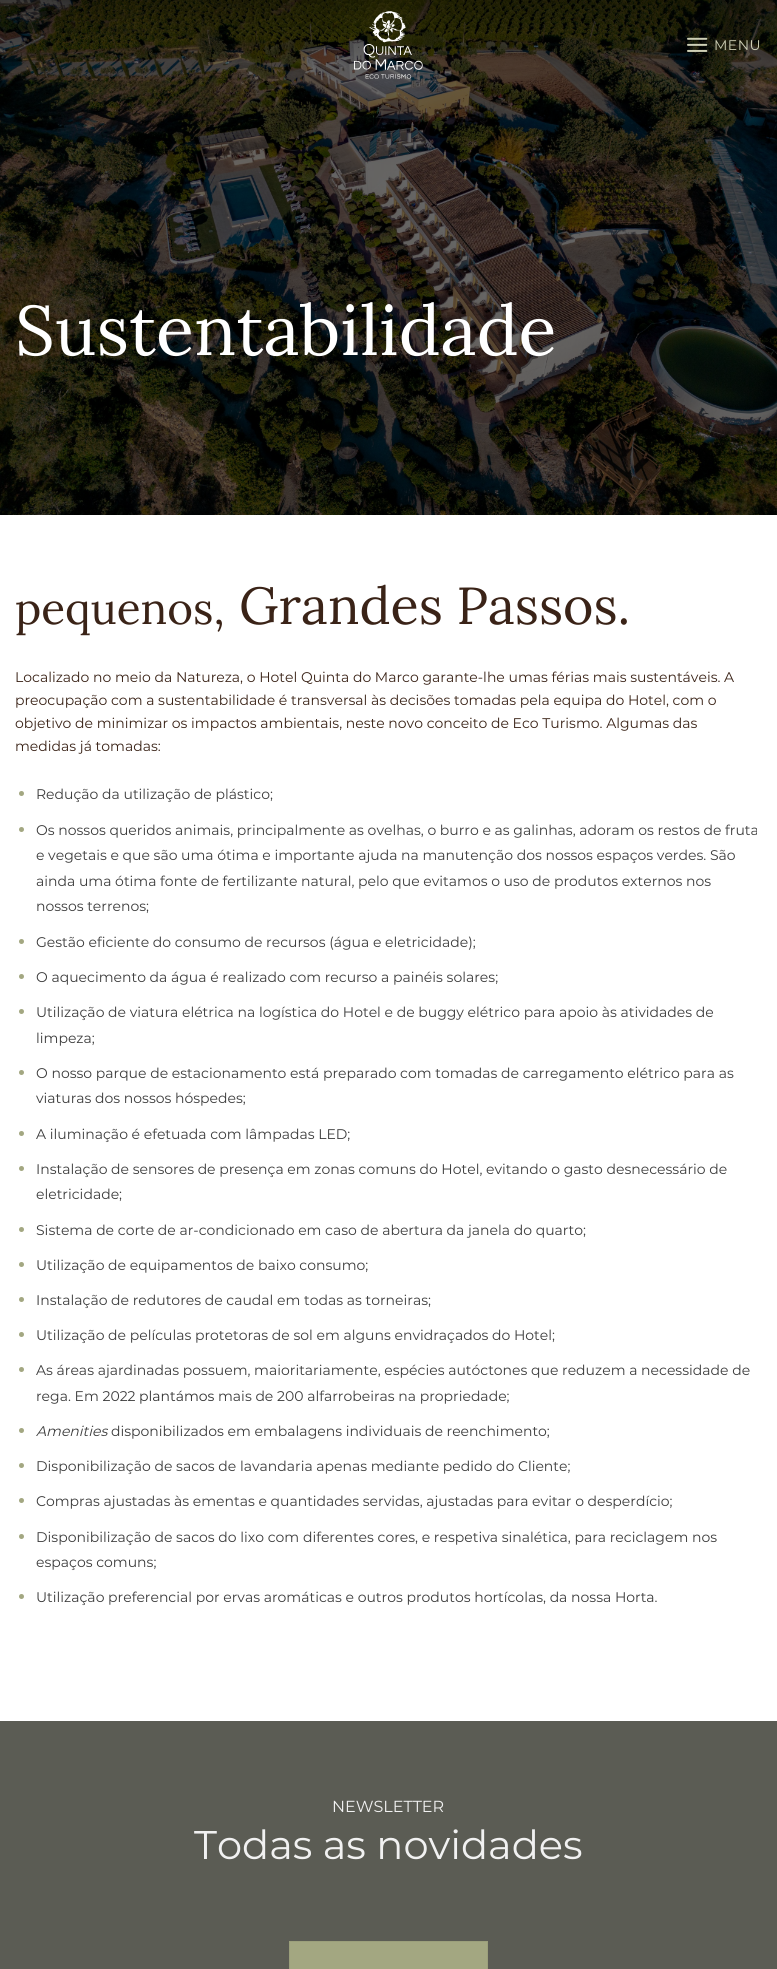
import math
import cairocffi as cairo

surface = cairo.ImageSurface(cairo.FORMAT_RGB24, 777, 1969)
ctx = cairo.Context(surface)
options = cairo.FontOptions()
options.set_hint_metrics(cairo.HINT_METRICS_OFF)
options.set_hint_style(cairo.HINT_STYLE_NONE)
ctx.set_font_options(options)
ctx.set_miter_limit(4)


def rgb(r, g, b):
    ctx.set_source_rgb(r / 255, g / 255, b / 255)


def face(family, size, italic, bold):
    ctx.select_font_face(family, cairo.FONT_SLANT_ITALIC if italic else cairo.FONT_SLANT_NORMAL, cairo.FONT_WEIGHT_BOLD if bold else cairo.FONT_WEIGHT_NORMAL)
    ctx.set_font_size(size)


def label(x, y, s):
    ctx.move_to(x, y)
    ctx.show_text(s)


def tracked(x, y, s, letter, word):
    ctx.move_to(x, y)
    for ch in s:
        ctx.show_text(ch)
        ctx.rel_move_to(letter + word * (ch == ' '), 0)


def rect(x, y, w, h):
    ctx.rectangle(x, y, w, h)
    ctx.fill()


def image(path, x, y, w, h):
    ctx.save()
    ctx.set_source_surface(cairo.ImageSurface.create_from_png(path), x, y)
    ctx.rectangle(x, y, w, h)
    ctx.fill()
    ctx.restore()


rgb(255, 255, 255)
ctx.paint()
image('image2.png', 0, 0, 777, 515)
image('image0.png', 354, 11, 69, 68)
image('image1.png', 687, 37, 21, 15)
face('Montserrat', 14, 0, 0)
rgb(207, 208, 182)
tracked(714, 50, 'MENU', 0.5, 0)
face('Lora', 70, 0, 0)
rgb(255, 255, 255)
label(15, 355, 'Sustentabilidade')
face('Lora', 44, 0, 0)
rgb(58, 35, 23)
label(15, 624, 'pequenos,')
face('Lora', 52, 0, 0)
label(239, 624, 'Grandes Passos.')
face('Montserrat', 14, 0, 0)
label(15, 682, 'Localizado no meio da Natureza, o Hotel Quinta do Marco garante-lhe umas férias mais sustentáveis. A')
label(15, 705, 'preocupação com a sustentabilidade é transversal às decisões tomadas pela equipa do Hotel, com o')
label(15, 728, 'objetivo de minimizar os impactos ambientais, neste novo conceito de Eco Turismo. Algumas das')
label(15, 751, 'medidas já tomadas:')
rgb(163, 167, 129)
ctx.new_path()
ctx.arc(21.5, 793.5, 2.5, 0, 2 * math.pi)
ctx.fill()
rgb(60, 60, 60)
label(36, 799, 'Redução da utilização de plástico;')
rgb(163, 167, 129)
ctx.new_path()
ctx.arc(21.5, 829.5, 2.5, 0, 2 * math.pi)
ctx.fill()
rgb(60, 60, 60)
label(36, 835, 'Os nossos queridos animais, principalmente as ovelhas, o burro e as galinhas, adoram os restos de fruta')
label(36, 860, 'e vegetais e que são uma ótima e importante ajuda na manutenção dos nossos espaços verdes. São')
label(36, 886, 'ainda uma ótima fonte de fertilizante natural, pelo que evitamos o uso de produtos externos nos')
label(36, 911, 'nossos terrenos;')
rgb(163, 167, 129)
ctx.new_path()
ctx.arc(21.5, 941.5, 2.5, 0, 2 * math.pi)
ctx.fill()
rgb(60, 60, 60)
label(36, 947, 'Gestão eficiente do consumo de recursos (água e eletricidade);')
rgb(163, 167, 129)
ctx.new_path()
ctx.arc(21.5, 976.5, 2.5, 0, 2 * math.pi)
ctx.fill()
rgb(60, 60, 60)
label(36, 982, 'O aquecimento da água é realizado com recurso a painéis solares;')
rgb(163, 167, 129)
ctx.new_path()
ctx.arc(21.5, 1011.5, 2.5, 0, 2 * math.pi)
ctx.fill()
rgb(60, 60, 60)
label(36, 1017, 'Utilização de viatura elétrica na logística do Hotel e de buggy elétrico para apoio às atividades de')
label(36, 1043, 'limpeza;')
rgb(163, 167, 129)
ctx.new_path()
ctx.arc(21.5, 1072.5, 2.5, 0, 2 * math.pi)
ctx.fill()
rgb(60, 60, 60)
label(36, 1078, 'O nosso parque de estacionamento está preparado com tomadas de carregamento elétrico para as')
label(36, 1103, 'viaturas dos nossos hóspedes;')
rgb(163, 167, 129)
ctx.new_path()
ctx.arc(21.5, 1133.5, 2.5, 0, 2 * math.pi)
ctx.fill()
rgb(60, 60, 60)
label(36, 1139, 'A iluminação é efetuada com lâmpadas LED;')
rgb(163, 167, 129)
ctx.new_path()
ctx.arc(21.5, 1168.5, 2.5, 0, 2 * math.pi)
ctx.fill()
rgb(60, 60, 60)
label(36, 1174, 'Instalação de sensores de presença em zonas comuns do Hotel, evitando o gasto desnecessário de')
label(36, 1199, 'eletricidade;')
rgb(163, 167, 129)
ctx.new_path()
ctx.arc(21.5, 1229.5, 2.5, 0, 2 * math.pi)
ctx.fill()
rgb(60, 60, 60)
label(36, 1235, 'Sistema de corte de ar-condicionado em caso de abertura da janela do quarto;')
rgb(163, 167, 129)
ctx.new_path()
ctx.arc(21.5, 1264.5, 2.5, 0, 2 * math.pi)
ctx.fill()
rgb(60, 60, 60)
label(36, 1270, 'Utilização de equipamentos de baixo consumo;')
rgb(163, 167, 129)
ctx.new_path()
ctx.arc(21.5, 1299.5, 2.5, 0, 2 * math.pi)
ctx.fill()
rgb(60, 60, 60)
label(36, 1305, 'Instalação de redutores de caudal em todas as torneiras;')
rgb(163, 167, 129)
ctx.new_path()
ctx.arc(21.5, 1334.5, 2.5, 0, 2 * math.pi)
ctx.fill()
rgb(60, 60, 60)
label(36, 1340, 'Utilização de películas protetoras de sol em alguns envidraçados do Hotel;')
rgb(163, 167, 129)
ctx.new_path()
ctx.arc(21.5, 1369.5, 2.5, 0, 2 * math.pi)
ctx.fill()
rgb(60, 60, 60)
label(36, 1375, 'As áreas ajardinadas possuem, maioritariamente, espécies autóctones que reduzem a necessidade de')
label(36, 1401, 'rega. Em 2022')
rgb(51, 51, 51)
label(139, 1401, 'plantámos')
rgb(60, 60, 60)
label(218, 1401, 'mais de 200 alfarrobeiras na propriedade;')
rgb(163, 167, 129)
ctx.new_path()
ctx.arc(21.5, 1430.5, 2.5, 0, 2 * math.pi)
ctx.fill()
face('Montserrat', 14, 1, 0)
rgb(60, 60, 60)
label(36, 1436, 'Amenities')
face('Montserrat', 14, 0, 0)
label(111, 1436, 'disponibilizados em embalagens individuais de reenchimento;')
rgb(163, 167, 129)
ctx.new_path()
ctx.arc(21.5, 1465.5, 2.5, 0, 2 * math.pi)
ctx.fill()
rgb(60, 60, 60)
label(36, 1471, 'Disponibilização de sacos de lavandaria apenas mediante pedido do Cliente;')
rgb(163, 167, 129)
ctx.new_path()
ctx.arc(21.5, 1500.5, 2.5, 0, 2 * math.pi)
ctx.fill()
rgb(60, 60, 60)
label(36, 1506, 'Compras ajustadas às ementas e quantidades servidas, ajustadas para evitar o desperdício;')
rgb(163, 167, 129)
ctx.new_path()
ctx.arc(21.5, 1536.5, 2.5, 0, 2 * math.pi)
ctx.fill()
rgb(60, 60, 60)
label(36, 1542, 'Disponibilização de sacos do lixo com diferentes cores, e respetiva sinalética, para reciclagem nos')
label(36, 1567, 'espaços comuns;')
rgb(163, 167, 129)
ctx.new_path()
ctx.arc(21.5, 1596.5, 2.5, 0, 2 * math.pi)
ctx.fill()
rgb(60, 60, 60)
label(36, 1602, 'Utilização preferencial por ervas aromáticas e outros produtos hortícolas, da nossa Horta.')
rgb(91, 92, 84)
rect(0, 1721, 777, 248)
face('Montserrat', 16, 0, 0)
rgb(241, 241, 241)
label(332, 1812, 'NEWSLETTER')
face('Montserrat', 40, 0, 0)
label(194, 1859, 'Todas as novidades')
rgb(163, 167, 129)
ctx.rectangle(289.5, 1941.5, 198, 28)
ctx.fill_preserve()
rgb(155, 159, 123)
ctx.set_line_width(1)
ctx.stroke()
surface.write_to_png('render.png')
